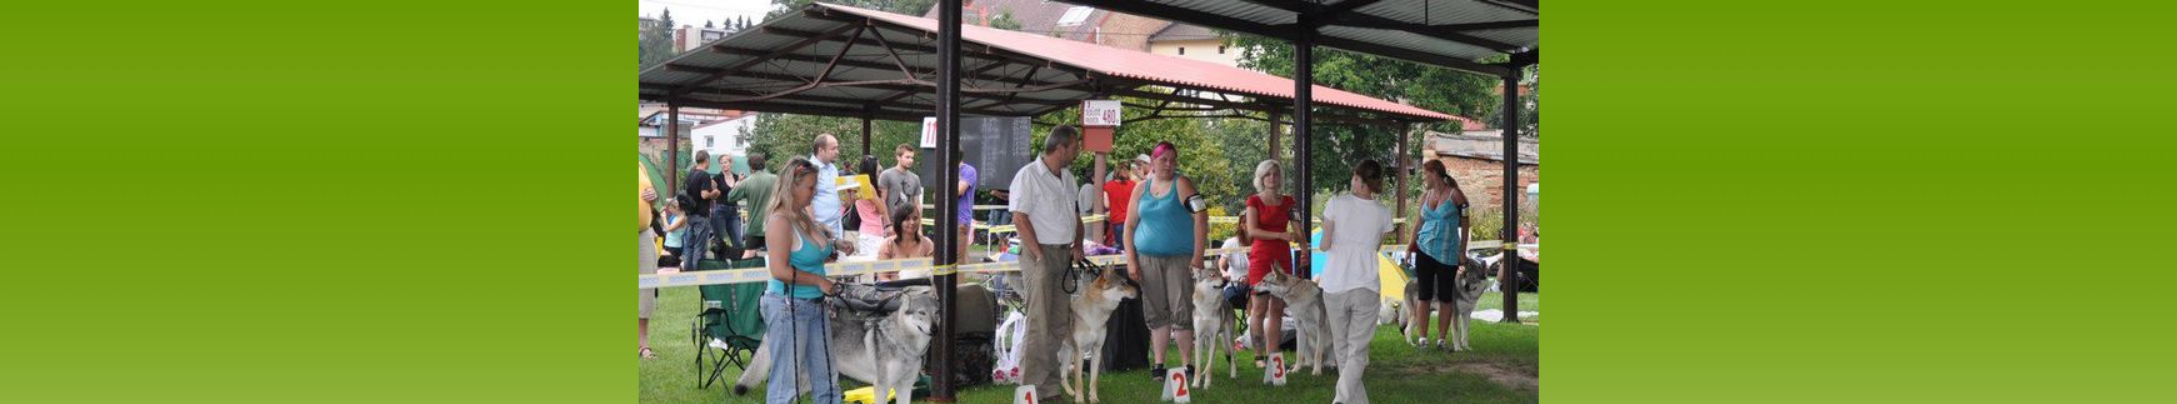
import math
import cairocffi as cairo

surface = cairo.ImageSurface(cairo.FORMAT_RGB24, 2177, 404)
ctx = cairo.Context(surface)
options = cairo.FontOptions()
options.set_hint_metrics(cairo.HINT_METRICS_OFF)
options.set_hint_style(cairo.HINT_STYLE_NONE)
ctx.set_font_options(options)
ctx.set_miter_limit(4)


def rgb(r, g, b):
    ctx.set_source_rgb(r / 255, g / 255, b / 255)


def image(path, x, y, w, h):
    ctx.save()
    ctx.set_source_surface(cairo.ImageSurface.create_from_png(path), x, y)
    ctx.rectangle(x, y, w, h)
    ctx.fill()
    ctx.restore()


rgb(255, 255, 255)
ctx.paint()
image('image0.png', 0, 0, 2177, 404)
image('image1.png', 638, 0, 901, 404)
surface.write_to_png('render.png')
